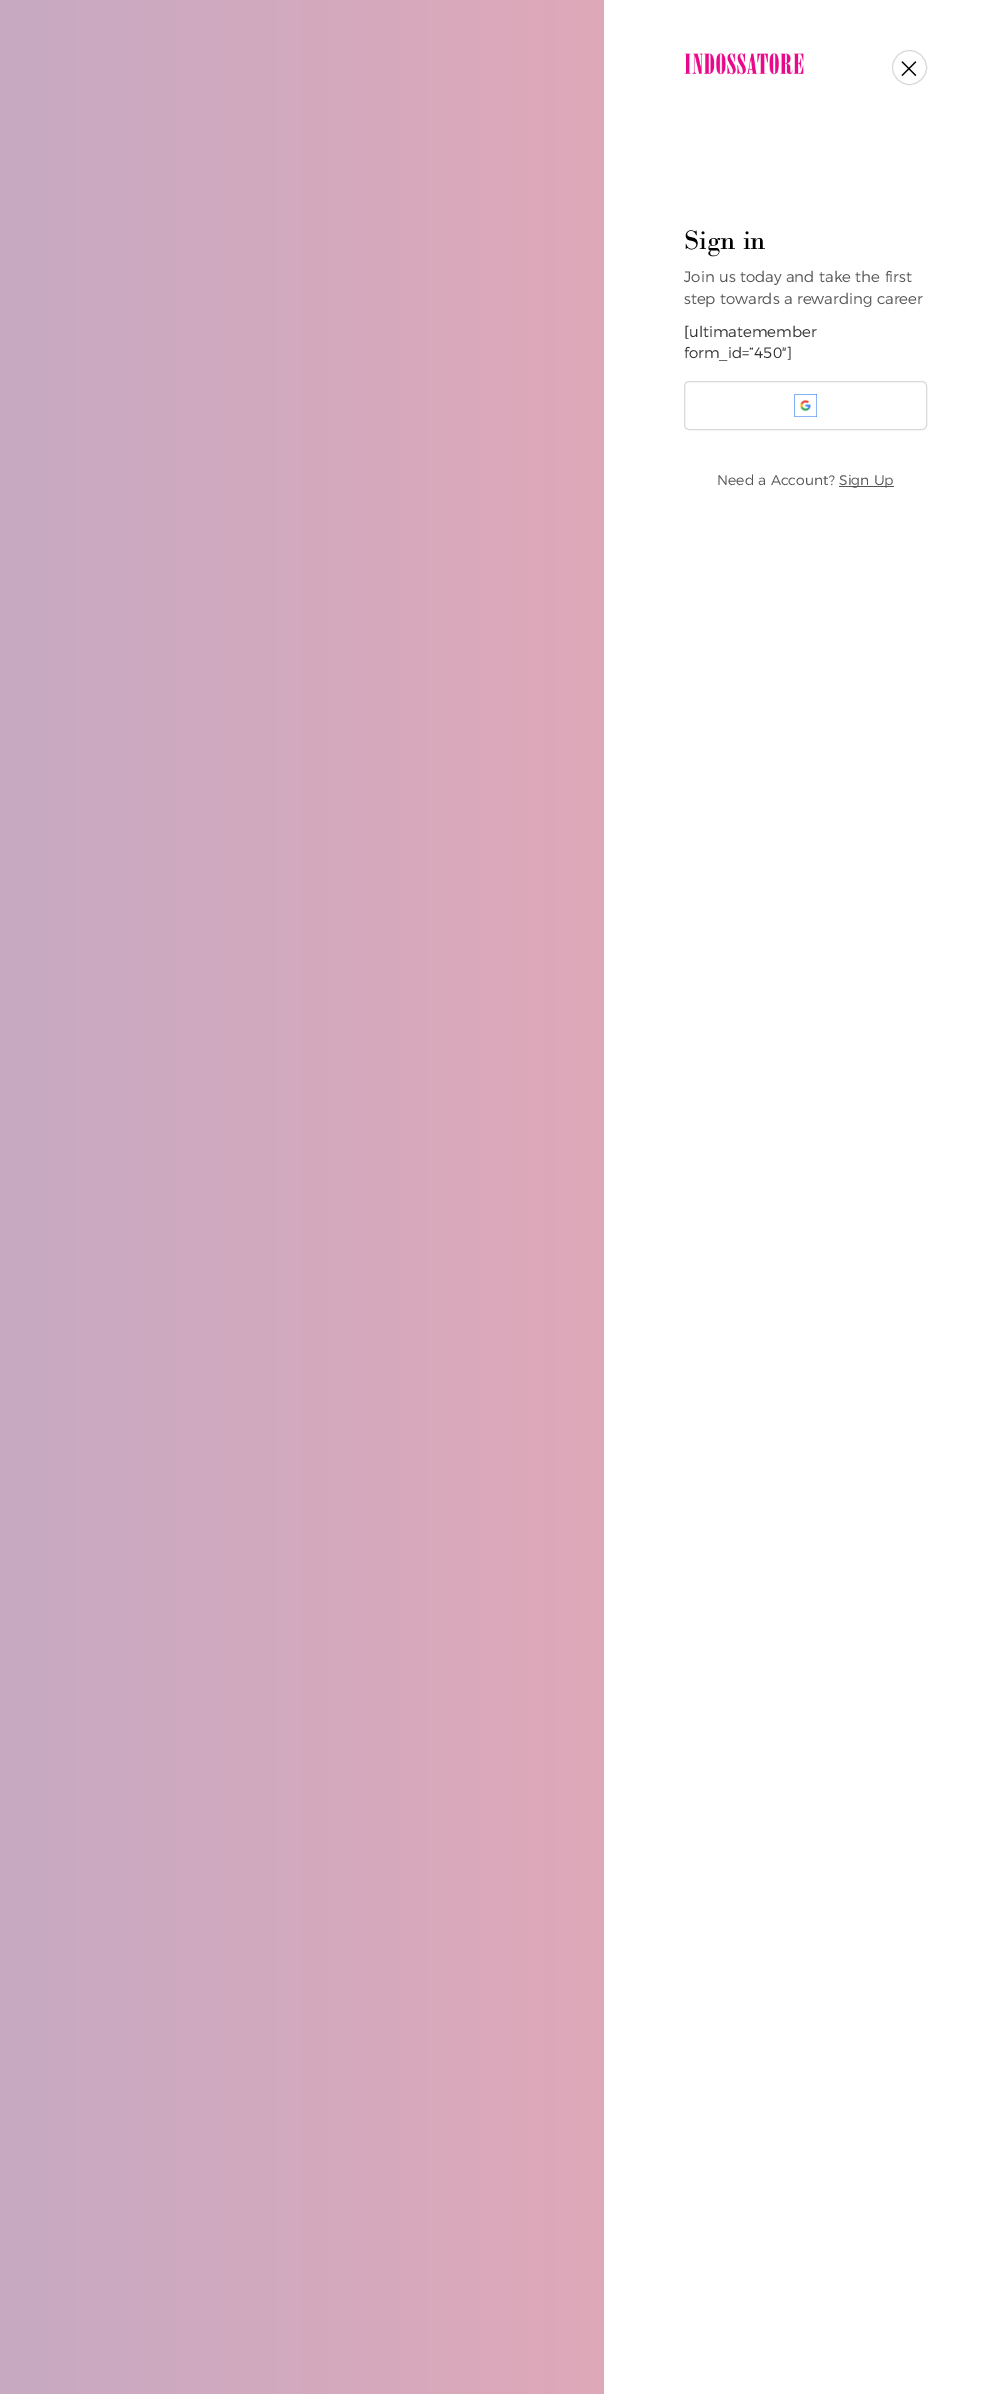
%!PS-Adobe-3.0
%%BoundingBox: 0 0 1007 2394
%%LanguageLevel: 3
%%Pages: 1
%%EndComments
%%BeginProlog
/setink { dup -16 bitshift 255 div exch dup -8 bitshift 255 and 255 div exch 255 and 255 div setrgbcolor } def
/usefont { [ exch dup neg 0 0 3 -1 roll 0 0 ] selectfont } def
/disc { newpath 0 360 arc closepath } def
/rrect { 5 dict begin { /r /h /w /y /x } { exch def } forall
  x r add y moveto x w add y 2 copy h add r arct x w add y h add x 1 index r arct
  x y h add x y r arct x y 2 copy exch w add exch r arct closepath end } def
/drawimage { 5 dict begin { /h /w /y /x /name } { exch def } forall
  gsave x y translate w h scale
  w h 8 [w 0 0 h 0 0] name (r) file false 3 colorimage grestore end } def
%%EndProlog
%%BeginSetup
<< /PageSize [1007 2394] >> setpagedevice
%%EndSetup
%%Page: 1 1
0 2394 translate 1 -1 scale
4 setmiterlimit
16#FFFFFF setink
0 0 1007 2394 rectfill
gsave 0 0 moveto 604 0 lineto 604 2394 lineto 0 2394 lineto closepath clip newpath
<< /ShadingType 2 /ColorSpace /DeviceRGB /Coords [0 1197 604 1197] /Extend [true true] /Function << /FunctionType 2 /Domain [0 1] /C0 [0.78 0.667 0.765] /C1 [0.875 0.659 0.725] /N 1 >> >> shfill grestore
(img1.raw) 684 53 120 22 drawimage
16#D9D9D9 setink
909.5 67.5 17 disc stroke
(img2.raw) 901 61 16 15 drawimage
/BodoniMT-Regular 28 usefont
16#000000 setink
684 249 moveto (Sign in) show
/Montserrat-Light 15 usefont
16#555555 setink
684 282 moveto (Join us today and take the first) show
684 304 moveto (step towards a rewarding career) show
16#333333 setink
684 337 moveto ([ultimatemember) show
684 358 moveto (form_id=”450″]) show
16#D9D9D9 setink
684.5 381.5 242 48 4.5 rrect stroke
(img3.raw) 794 394 23 23 drawimage
/Montserrat-Light 14 usefont
16#555555 setink
717 485 moveto (Need a Account?) show
839 486 55 1 rectfill
839 485 moveto (Sign Up) show
showpage
%%EOF
